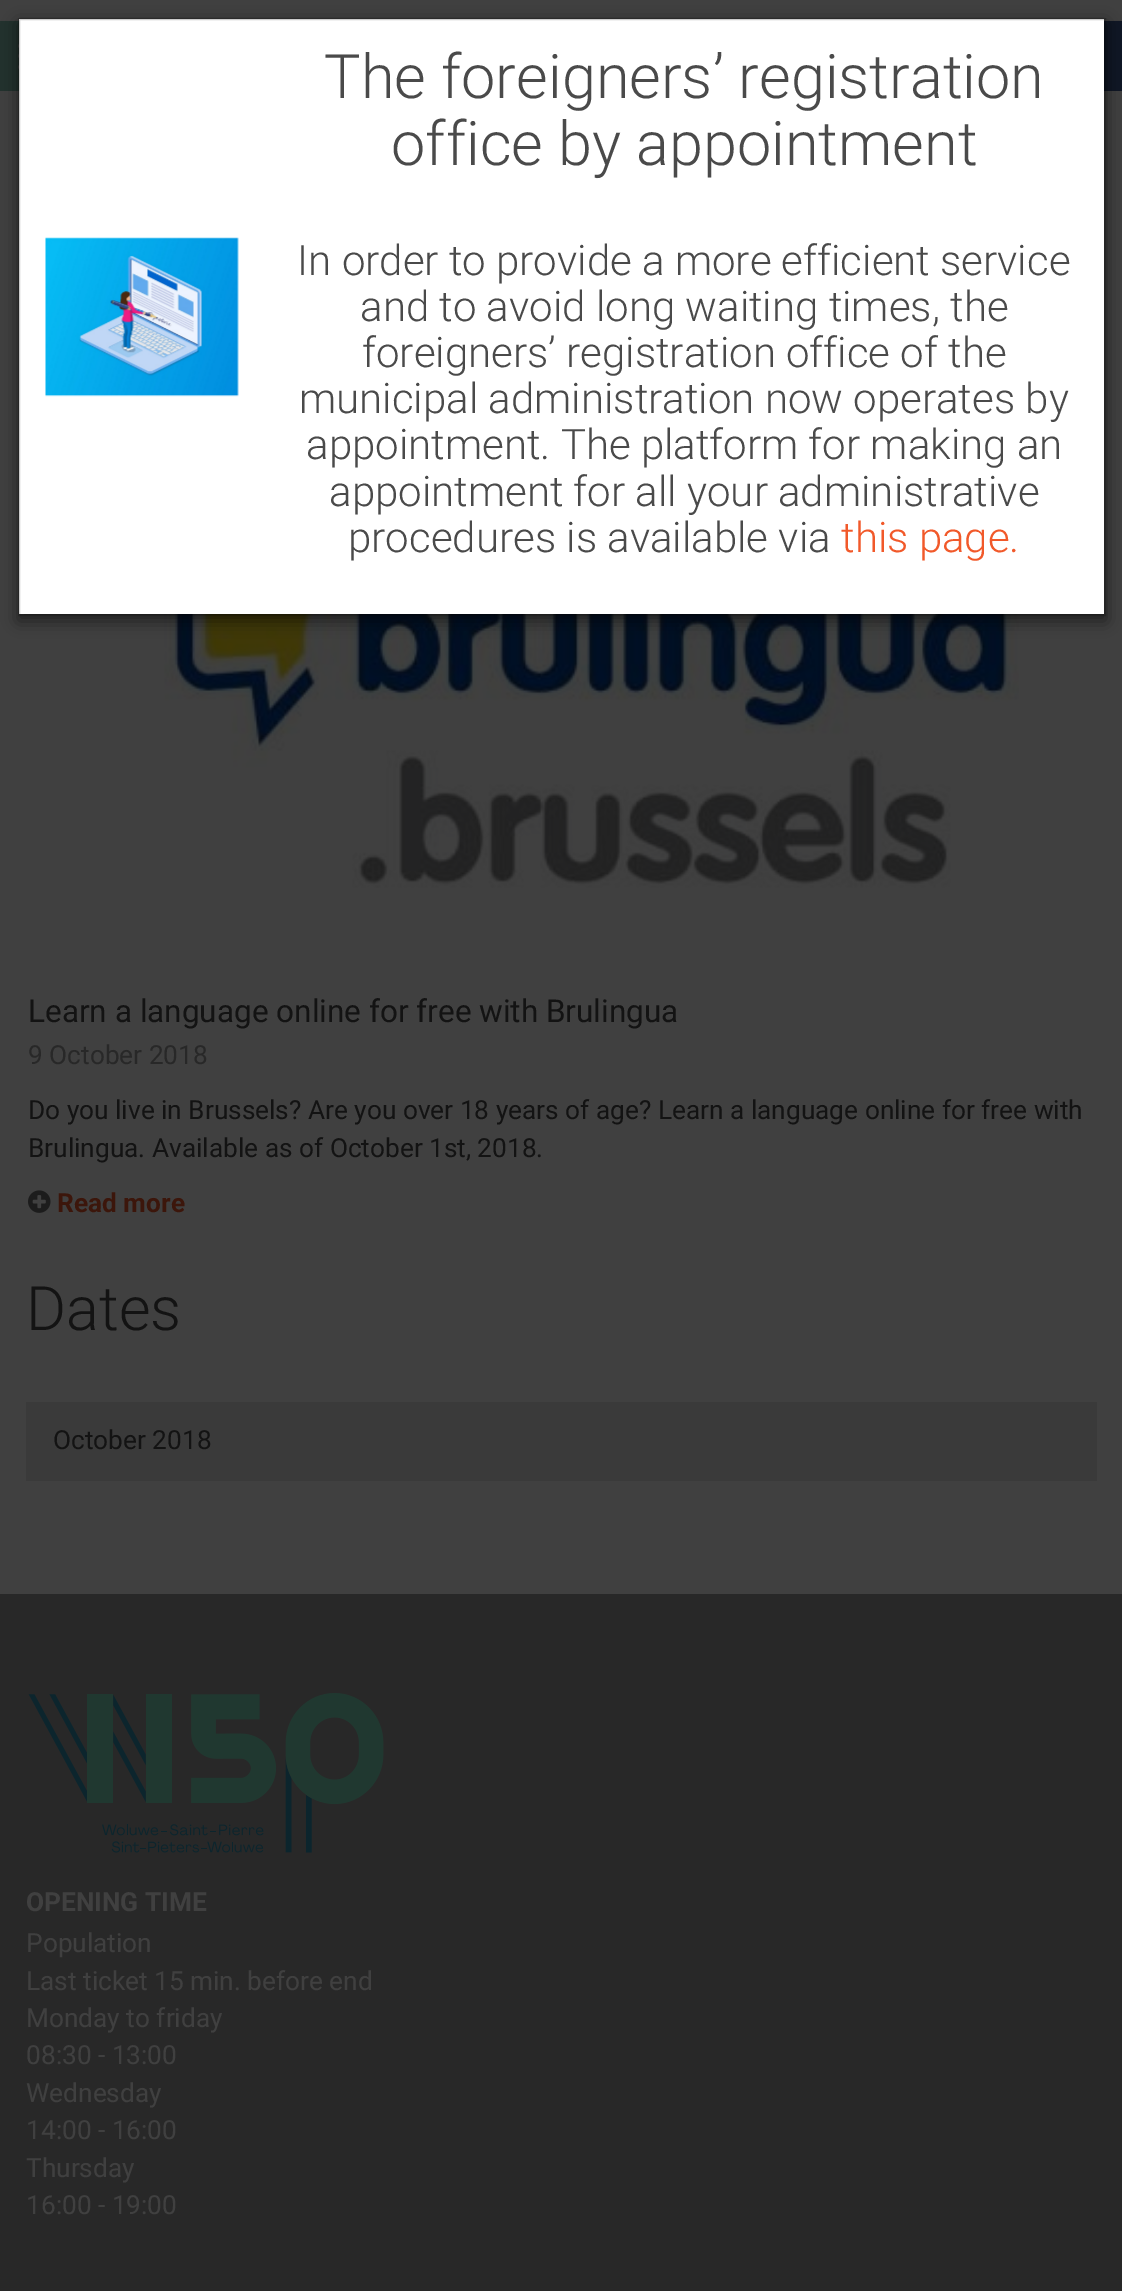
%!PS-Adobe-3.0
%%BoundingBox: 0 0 1122 2291
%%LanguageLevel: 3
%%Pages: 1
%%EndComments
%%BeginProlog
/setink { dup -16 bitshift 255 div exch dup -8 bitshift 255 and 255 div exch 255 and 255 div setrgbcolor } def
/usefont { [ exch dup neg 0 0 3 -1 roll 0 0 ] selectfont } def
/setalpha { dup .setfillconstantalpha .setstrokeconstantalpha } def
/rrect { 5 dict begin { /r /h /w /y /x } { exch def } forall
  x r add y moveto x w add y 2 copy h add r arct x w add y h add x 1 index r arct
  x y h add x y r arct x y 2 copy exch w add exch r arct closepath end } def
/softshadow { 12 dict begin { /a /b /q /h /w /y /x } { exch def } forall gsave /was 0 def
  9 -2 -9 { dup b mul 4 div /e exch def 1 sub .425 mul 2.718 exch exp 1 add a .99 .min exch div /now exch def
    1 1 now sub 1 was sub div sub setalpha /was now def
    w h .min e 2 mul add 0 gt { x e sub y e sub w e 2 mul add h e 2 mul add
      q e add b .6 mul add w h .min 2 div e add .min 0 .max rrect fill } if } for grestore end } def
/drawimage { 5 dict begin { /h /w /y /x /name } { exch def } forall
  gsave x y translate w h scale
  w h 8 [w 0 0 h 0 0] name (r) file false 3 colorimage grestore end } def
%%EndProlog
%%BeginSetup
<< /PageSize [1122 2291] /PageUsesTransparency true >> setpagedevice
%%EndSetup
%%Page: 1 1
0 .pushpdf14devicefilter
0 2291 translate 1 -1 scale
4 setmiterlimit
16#404040 setink
0 0 1122 2291 rectfill
16#23322E setink
0 21 19 70 rectfill
16#404040 setink
18 44 38 4 2 rrect fill
18 54 38 4 2 rrect fill
18 65 38 4 2 rrect fill
16#0F1626 setink
1104 21 18 70 rectfill
(img2.raw) 164 614 855 274 drawimage
16#000000 setink
18 23 1088 598 0 8 0.5 softshadow
16#FFFFFF setink
19 19 1085 595 rectfill
0.2 setalpha
16#000000 setink
2 setlinewidth
19 19 1086 596 rectstroke
1 setalpha
(img1.raw) 45 237 194 160 drawimage
/Roboto-Light 61.25 usefont
16#4A4A4A setink
324 98 moveto (The foreigners’ registration) show
391 165 moveto (office by appointment) show
/Roboto-Light 42 usefont
[
    [(In order to provide a more efficient service) 297 275]
    [(and to avoid long waiting times, the) 360 321]
    [(foreigners’ registration office of the) 362 367]
    [(municipal administration now operates by) 299 413]
    [(appointment. The platform for making an) 306 459]
    [(appointment for all your administrative) 329 506]
    [(procedures is available via) 348 552]
] { aload pop moveto show } forall
16#F1592A setink
841 552 moveto (this page.) show
/Roboto-Regular 31.5 usefont
16#131313 setink
28 1022 moveto (Learn a language online for free with Brulingua) show
/Roboto-Regular 26.25 usefont
16#282828 setink
28 1064 moveto (9 October 2018) show
16#131313 setink
28 1119 moveto (Do you live in Brussels? Are you over 18 years of age? Learn a language online for free with) show
28 1157 moveto (Brulingua. Available as of October 1st, 2018.) show
(img3.raw) 28 1190 23 23 drawimage
/Roboto-Bold 26.25 usefont
16#3C160B setink
57 1212 moveto (Read more) show
/Roboto-Light 61.25 usefont
16#131313 setink
26 1330 moveto (Dates) show
16#3A3A3A setink
26 1402 1071 79 rectfill
/Roboto-Regular 26.25 usefont
16#131313 setink
53 1449 moveto (October 2018) show
16#282828 setink
0 1594 1122 697 rectfill
(img4.raw) 28 1693 356 160 drawimage
/Roboto-Bold 26.25 usefont
16#404040 setink
26 1911 moveto (OPENING TIME) show
/Roboto-Regular 26.25 usefont
[
    [(Population) 26 1952]
    [(Last ticket 15 min. before end) 26 1990]
    [(Monday to friday) 26 2027]
    [(08:30 - 13:00) 26 2064]
    [(Wednesday) 26 2102]
    [(14:00 - 16:00) 26 2139]
    [(Thursday) 26 2177]
    [(16:00 - 19:00) 26 2214]
] { aload pop moveto show } forall
.poppdf14devicefilter showpage
%%EOF
